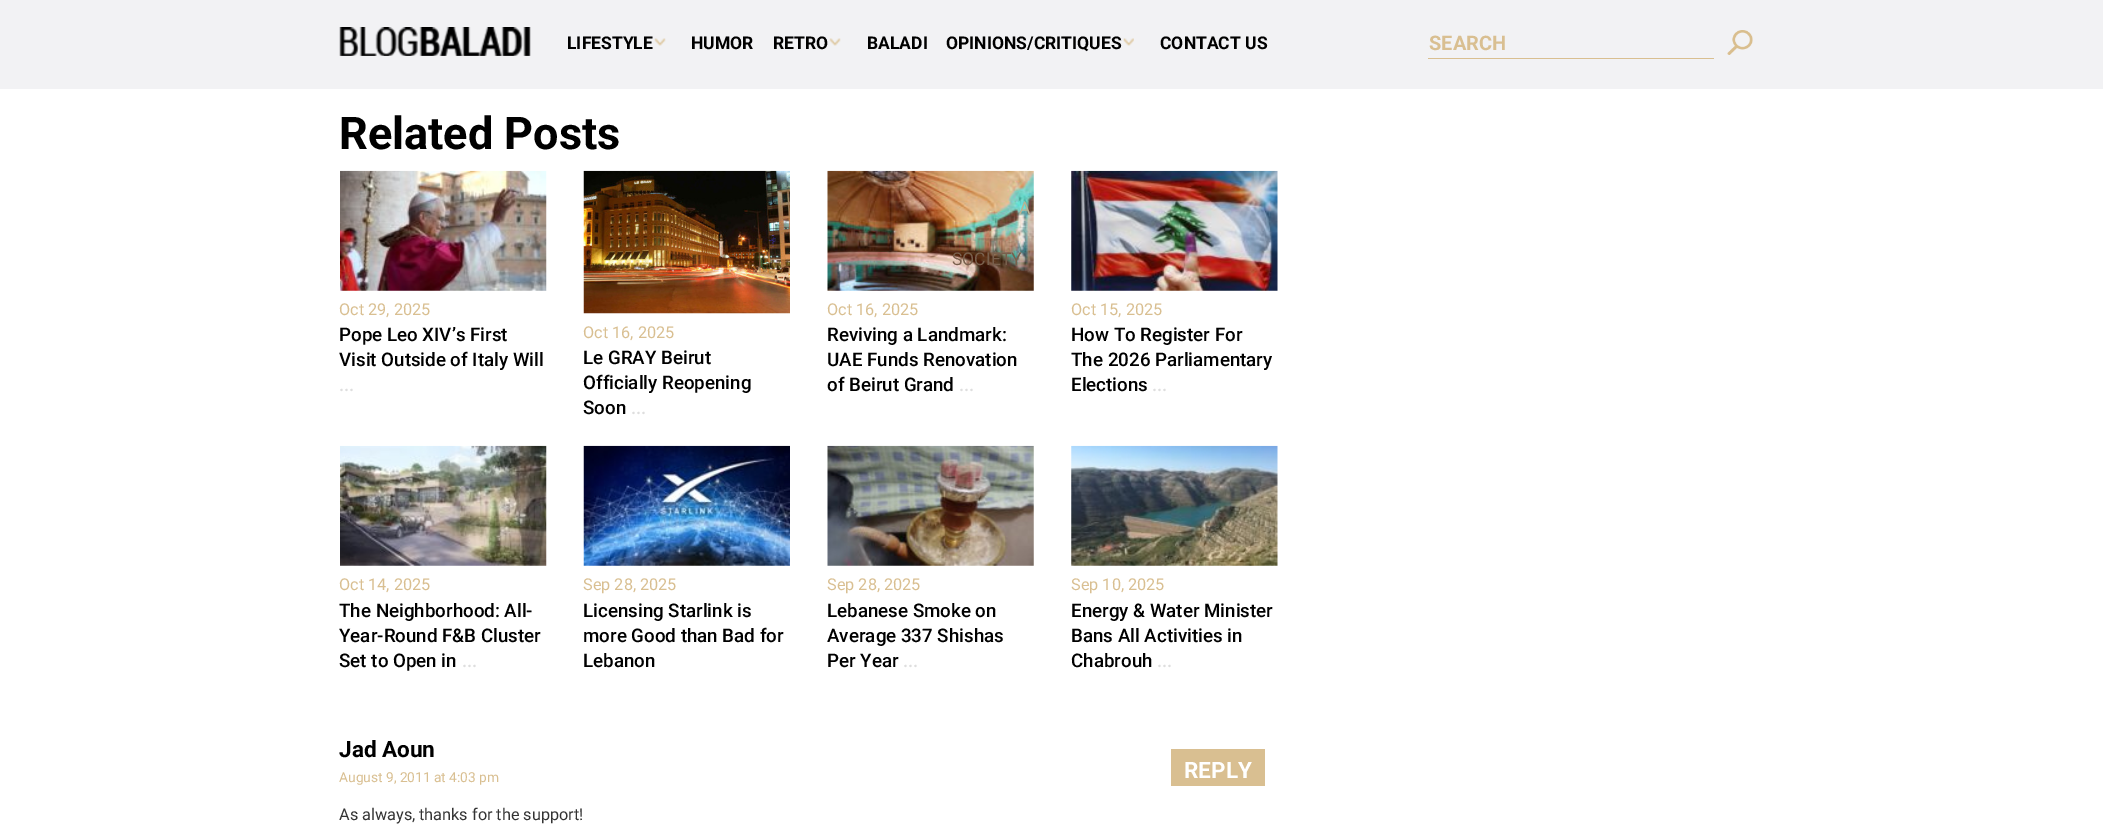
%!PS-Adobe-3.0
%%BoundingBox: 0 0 2103 832
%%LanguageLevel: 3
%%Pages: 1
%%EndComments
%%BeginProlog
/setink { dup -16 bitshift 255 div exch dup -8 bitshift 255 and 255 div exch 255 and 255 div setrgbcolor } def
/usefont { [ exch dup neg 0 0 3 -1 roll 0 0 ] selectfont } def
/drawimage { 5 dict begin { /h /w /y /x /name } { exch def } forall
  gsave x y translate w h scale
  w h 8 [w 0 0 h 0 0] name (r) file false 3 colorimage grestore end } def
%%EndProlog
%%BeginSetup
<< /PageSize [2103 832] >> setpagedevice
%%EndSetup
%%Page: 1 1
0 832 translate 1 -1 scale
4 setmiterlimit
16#FFFFFF setink
0 0 2103 832 rectfill
16#F2F2F4 setink
0 0 2103 89 rectfill
(img1.raw) 339 27 192 29 drawimage
/Roboto-Bold 17.5 usefont
16#000000 setink
567 49 moveto (LIFESTYLE) show
(img2.raw) 654 38 12 8 drawimage
691 49 moveto (HUMOR) show
773 49 moveto (RETRO) show
(img2.raw) 829 38 12 8 drawimage
867 49 moveto (BALADI) show
946 49 moveto (OPINIONS/CRITIQUES) show
(img3.raw) 1123 38 11 8 drawimage
(img7.raw) 827 170 207 121 drawimage
/Roboto-Regular 17.5 usefont
16#BAB392 setink
1019 214 moveto (A) show
16#785F4C setink
952 265 moveto (SOCIETY) show
/Roboto-Bold 17.5 usefont
16#000000 setink
1160 49 moveto (CONTACT US) show
16#D9BF91 setink
1428 58 286 1 rectfill
/Roboto-Bold 20 usefont
1429 50 moveto (SEARCH) show
(img4.raw) 1727 30 26 25 drawimage
/Roboto-Bold 45 usefont
16#000000 setink
339 149 moveto (Related Posts) show
(img5.raw) 340 170 207 121 drawimage
/Roboto-Regular 16.25 usefont
16#D9BF91 setink
339 315 moveto (Oct 29, 2025) show
/Roboto-Medium 18.75 usefont
16#000000 setink
339 341 moveto (Pope Leo XIV’s First) show
339 366 moveto (Visit Outside of Italy Will) show
16#DEDEDE setink
339 391 moveto (...) show
(img6.raw) 583 170 207 144 drawimage
/Roboto-Regular 16.25 usefont
16#D9BF91 setink
583 338 moveto (Oct 16, 2025) show
/Roboto-Medium 18.75 usefont
16#000000 setink
[
    [(Le GRAY Beirut) 583 364]
    [(Officially Reopening) 583 389]
    [(Soon) 583 414]
] { aload pop moveto show } forall
16#DEDEDE setink
631 414 moveto (...) show
/Roboto-Regular 16.25 usefont
16#D9BF91 setink
827 315 moveto (Oct 16, 2025) show
/Roboto-Medium 18.75 usefont
16#000000 setink
[
    [(Reviving a Landmark:) 827 341]
    [(UAE Funds Renovation) 827 366]
    [(of Beirut Grand) 827 391]
] { aload pop moveto show } forall
16#DEDEDE setink
959 391 moveto (...) show
(img8.raw) 1071 170 207 121 drawimage
/Roboto-Regular 16.25 usefont
16#D9BF91 setink
1071 315 moveto (Oct 15, 2025) show
/Roboto-Medium 18.75 usefont
16#000000 setink
[
    [(How To Register For) 1071 341]
    [(The 2026 Parliamentary) 1071 366]
    [(Elections) 1071 391]
] { aload pop moveto show } forall
16#DEDEDE setink
1152 391 moveto (...) show
(img9.raw) 340 445 207 121 drawimage
/Roboto-Regular 16.25 usefont
16#D9BF91 setink
339 590 moveto (Oct 14, 2025) show
/Roboto-Medium 18.75 usefont
16#000000 setink
[
    [(The Neighborhood: All-) 339 617]
    [(Year-Round F&B Cluster) 339 642]
    [(Set to Open in) 339 667]
] { aload pop moveto show } forall
16#DEDEDE setink
462 667 moveto (...) show
(img10.raw) 583 445 207 121 drawimage
/Roboto-Regular 16.25 usefont
16#D9BF91 setink
583 590 moveto (Sep 28, 2025) show
/Roboto-Medium 18.75 usefont
16#000000 setink
[
    [(Licensing Starlink is) 583 617]
    [(more Good than Bad for) 583 642]
    [(Lebanon) 583 667]
] { aload pop moveto show } forall
(img11.raw) 827 445 207 121 drawimage
/Roboto-Regular 16.25 usefont
16#D9BF91 setink
827 590 moveto (Sep 28, 2025) show
/Roboto-Medium 18.75 usefont
16#000000 setink
[
    [(Lebanese Smoke on) 827 617]
    [(Average 337 Shishas) 827 642]
    [(Per Year) 827 667]
] { aload pop moveto show } forall
16#DEDEDE setink
903 667 moveto (...) show
(img12.raw) 1071 445 207 121 drawimage
/Roboto-Regular 16.25 usefont
16#D9BF91 setink
1071 590 moveto (Sep 10, 2025) show
/Roboto-Medium 18.75 usefont
16#000000 setink
[
    [(Energy & Water Minister) 1071 617]
    [(Bans All Activities in) 1071 642]
    [(Chabrouh) 1071 667]
] { aload pop moveto show } forall
16#DEDEDE setink
1157 667 moveto (...) show
/Roboto-Bold 22.5 usefont
16#000000 setink
339 757 moveto (Jad Aoun) show
/Roboto-Regular 13.75 usefont
16#D9BF91 setink
339 782 moveto (August 9, 2011 at 4:03 pm) show
1171 749 94 37 rectfill
/Roboto-Bold 22.5 usefont
16#FFFFFF setink
1184 778 moveto (REPLY) show
/Roboto-Regular 16.25 usefont
16#333333 setink
339 820 moveto (As always, thanks for the support!) show
showpage
%%EOF
